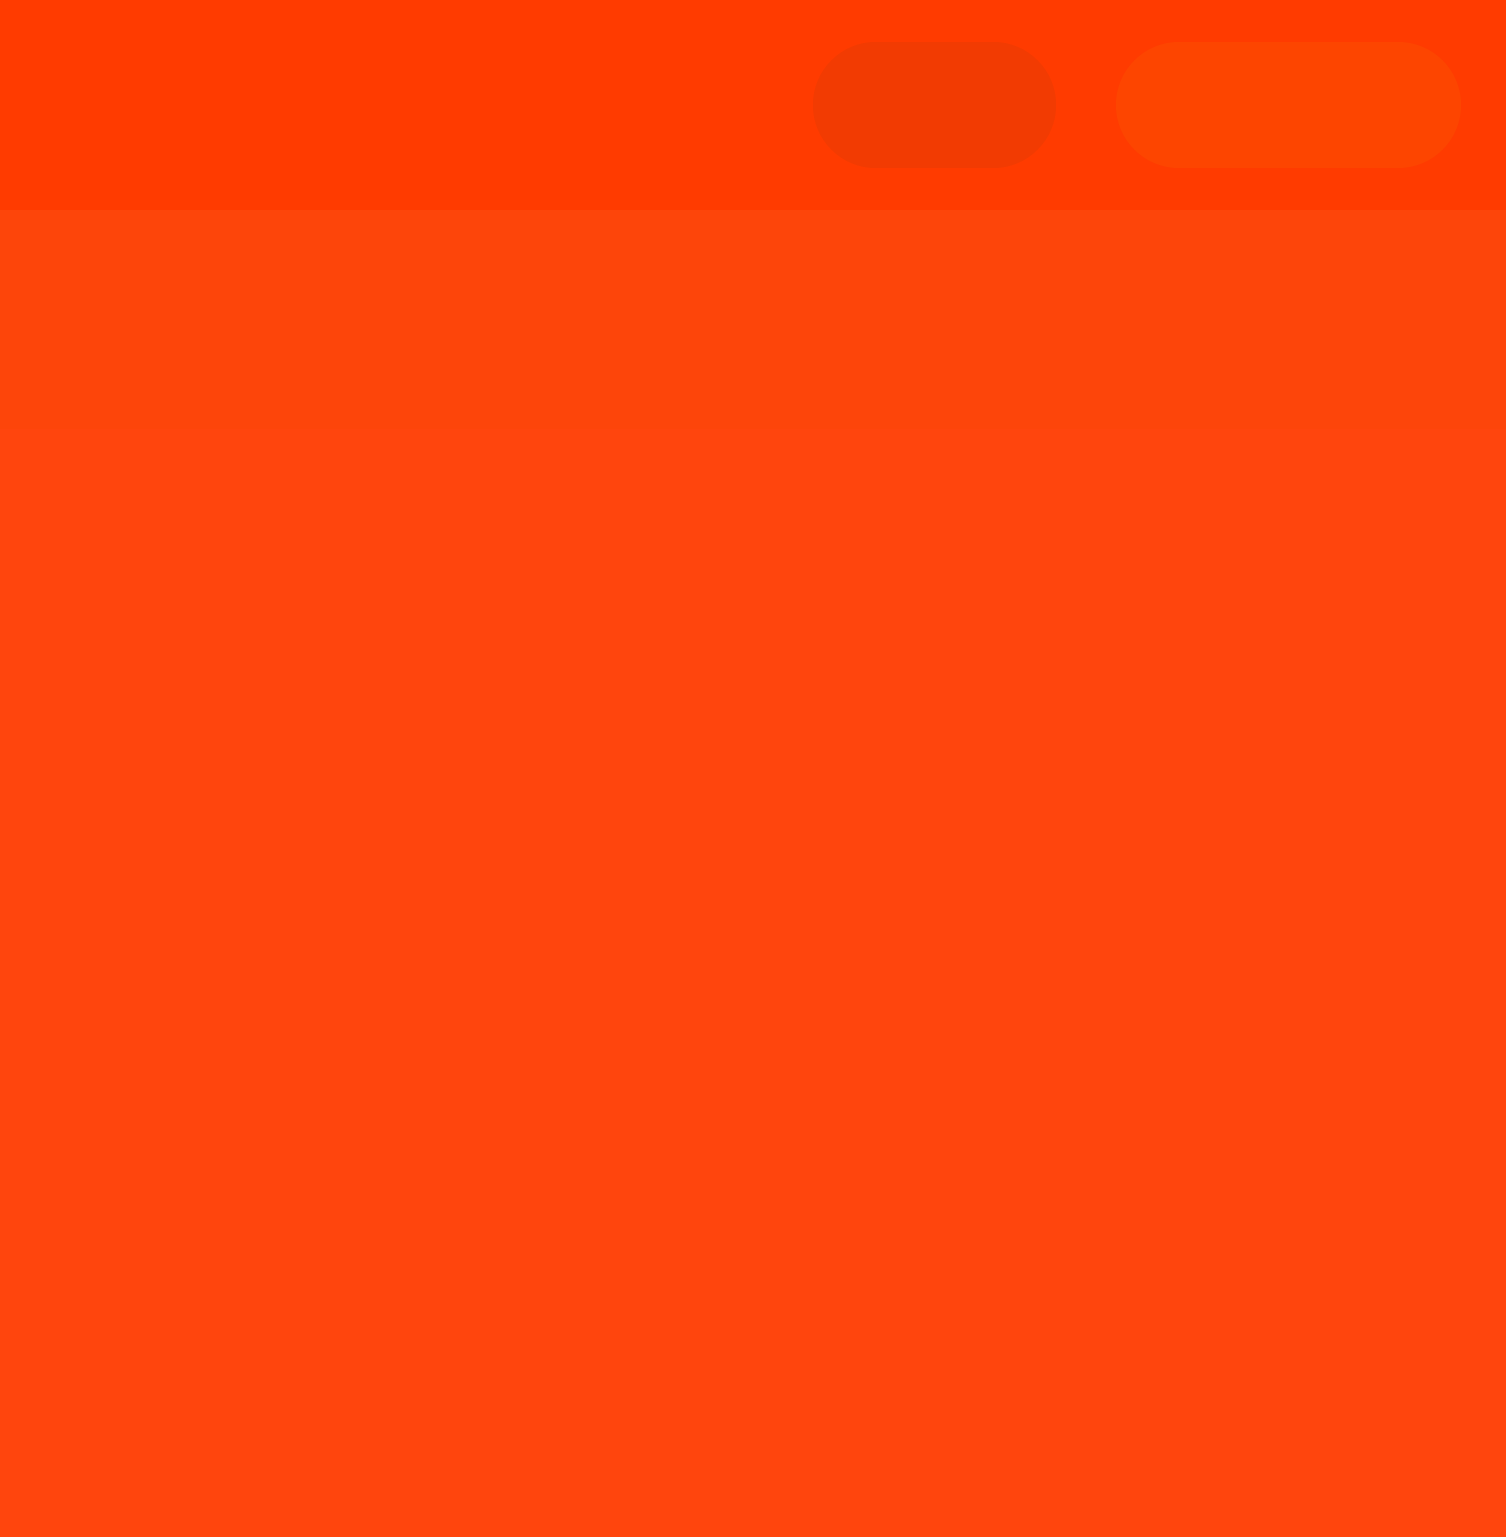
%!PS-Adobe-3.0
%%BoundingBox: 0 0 1506 1537
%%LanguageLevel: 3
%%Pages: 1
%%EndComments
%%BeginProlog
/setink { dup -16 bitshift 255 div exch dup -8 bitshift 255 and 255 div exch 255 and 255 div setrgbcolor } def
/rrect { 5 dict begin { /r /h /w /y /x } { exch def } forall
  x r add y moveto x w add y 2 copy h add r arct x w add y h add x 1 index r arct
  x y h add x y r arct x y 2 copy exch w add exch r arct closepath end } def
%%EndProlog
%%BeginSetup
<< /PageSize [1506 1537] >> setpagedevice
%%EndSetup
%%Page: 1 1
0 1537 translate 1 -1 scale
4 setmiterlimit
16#FF450D setink
0 0 1506 1537 rectfill
16#FF3B00 setink
0 0 1506 210 rectfill
16#F23B02 setink
813 42 243 126 63 rrect fill
16#FD4500 setink
1116 42 345 126 63 rrect fill
16#FD450A setink
0 210 1506 219 rectfill
showpage
%%EOF
